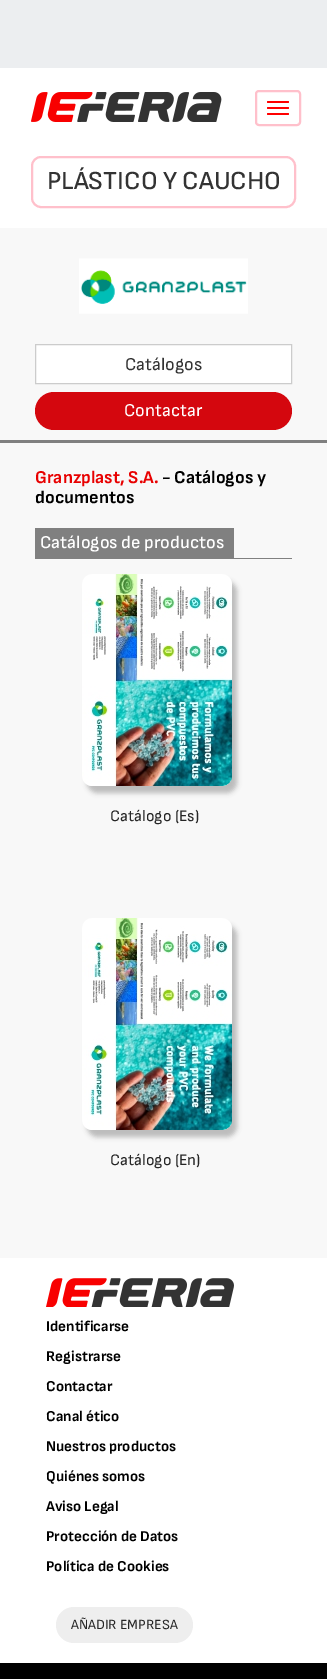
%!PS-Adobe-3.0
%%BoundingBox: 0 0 327 1679
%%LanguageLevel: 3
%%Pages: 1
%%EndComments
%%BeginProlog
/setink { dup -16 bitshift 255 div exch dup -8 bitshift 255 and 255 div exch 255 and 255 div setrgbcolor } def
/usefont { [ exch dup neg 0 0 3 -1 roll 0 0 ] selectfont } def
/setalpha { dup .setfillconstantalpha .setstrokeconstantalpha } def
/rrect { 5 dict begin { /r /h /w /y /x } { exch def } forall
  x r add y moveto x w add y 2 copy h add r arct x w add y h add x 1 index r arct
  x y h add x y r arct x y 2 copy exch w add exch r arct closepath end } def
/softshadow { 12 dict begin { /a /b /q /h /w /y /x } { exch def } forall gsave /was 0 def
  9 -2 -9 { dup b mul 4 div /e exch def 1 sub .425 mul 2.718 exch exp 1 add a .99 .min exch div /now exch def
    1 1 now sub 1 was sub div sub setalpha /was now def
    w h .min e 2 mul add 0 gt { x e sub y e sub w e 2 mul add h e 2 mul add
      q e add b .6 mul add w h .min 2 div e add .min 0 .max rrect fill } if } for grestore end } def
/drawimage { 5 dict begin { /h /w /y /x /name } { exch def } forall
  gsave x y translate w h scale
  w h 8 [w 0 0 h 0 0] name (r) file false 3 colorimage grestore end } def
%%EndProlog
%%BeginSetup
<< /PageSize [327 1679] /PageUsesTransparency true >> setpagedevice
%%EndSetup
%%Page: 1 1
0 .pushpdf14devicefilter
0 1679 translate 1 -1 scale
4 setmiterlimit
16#FFFFFF setink
0 0 327 1679 rectfill
16#ECEEF0 setink
0 0 327 68 rectfill
(img1.raw) 31 92 191 30 drawimage
16#FFC0CB setink
2 setlinewidth
256 91 44 34 3 rrect stroke
16#FF0000 setink
267 101 22 2 1 rrect fill
267 107 22 2 1 rrect fill
267 113 22 2 1 rrect fill
16#FFC0CB setink
32 157 263 50 9 rrect stroke
/SofiaSans-Medium 26 usefont
16#333333 setink
47 189 moveto (PLÁSTICO Y CAUCHO) show
16#F8F8F8 setink
0 228 327 1030 rectfill
16#808080 setink
0 440 327 3 rectfill
(img2.raw) 79 258 169 56 drawimage
16#FFFFFF setink
35.5 344.5 moveto 291.5 344.5 lineto 291.5 383.5 lineto 35.5 383.5 lineto closepath gsave fill grestore
16#CCCCCC setink
1 setlinewidth
stroke
/SofiaSans-Regular 18 usefont
16#333333 setink
125 370 moveto (Catálogos) show
16#D4070E setink
35 392 257 38 19 rrect fill
16#FFFFFF setink
124 416 moveto (Contactar) show
/SofiaSans-Bold 18 usefont
16#E80000 setink
35 483 moveto (Granzplast, S.A.) show
16#000000 setink
162 483 moveto (- Catálogos y) show
35 503 moveto (documentos) show
16#808080 setink
35 528 199 30 rectfill
/SofiaSans-Medium 18 usefont
16#FFFFFF setink
40 548 moveto (Catálogos de productos) show
16#808080 setink
35 558 257 1 rectfill
16#BBBBBB setink
87 581 150 212 10 2.5 1 softshadow
(img3.raw) 82 574 150 212 drawimage
(img4.raw) 88 776 144 10 drawimage
/SofiaSans-Regular 16 usefont
16#262626 setink
110 821 moveto (Catálogo \(Es\)) show
16#BBBBBB setink
87 925 150 212 10 2.5 1 softshadow
(img5.raw) 82 918 150 212 drawimage
(img6.raw) 88 1120 144 10 drawimage
16#262626 setink
110 1165 moveto (Catálogo \(En\)) show
(img7.raw) 46 1278 188 29 drawimage
/SofiaSans-Bold 15 usefont
16#000000 setink
[
    [(Identificarse) 46 1331]
    [(Registrarse) 46 1361]
    [(Contactar) 46 1391]
    [(Canal ético) 46 1421]
    [(Nuestros productos) 46 1451]
    [(Quiénes somos) 46 1481]
    [(Aviso Legal) 46 1511]
    [(Protección de Datos) 46 1541]
    [(Política de Cookies) 46 1571]
] { aload pop moveto show } forall
16#EEEEEE setink
56 1607 137 36 18 rrect fill
/SofiaSans-Regular 14 usefont
16#262626 setink
71 1629 moveto (AÑADIR EMPRESA) show
16#000000 setink
0 1663 327 16 rectfill
.poppdf14devicefilter showpage
%%EOF
